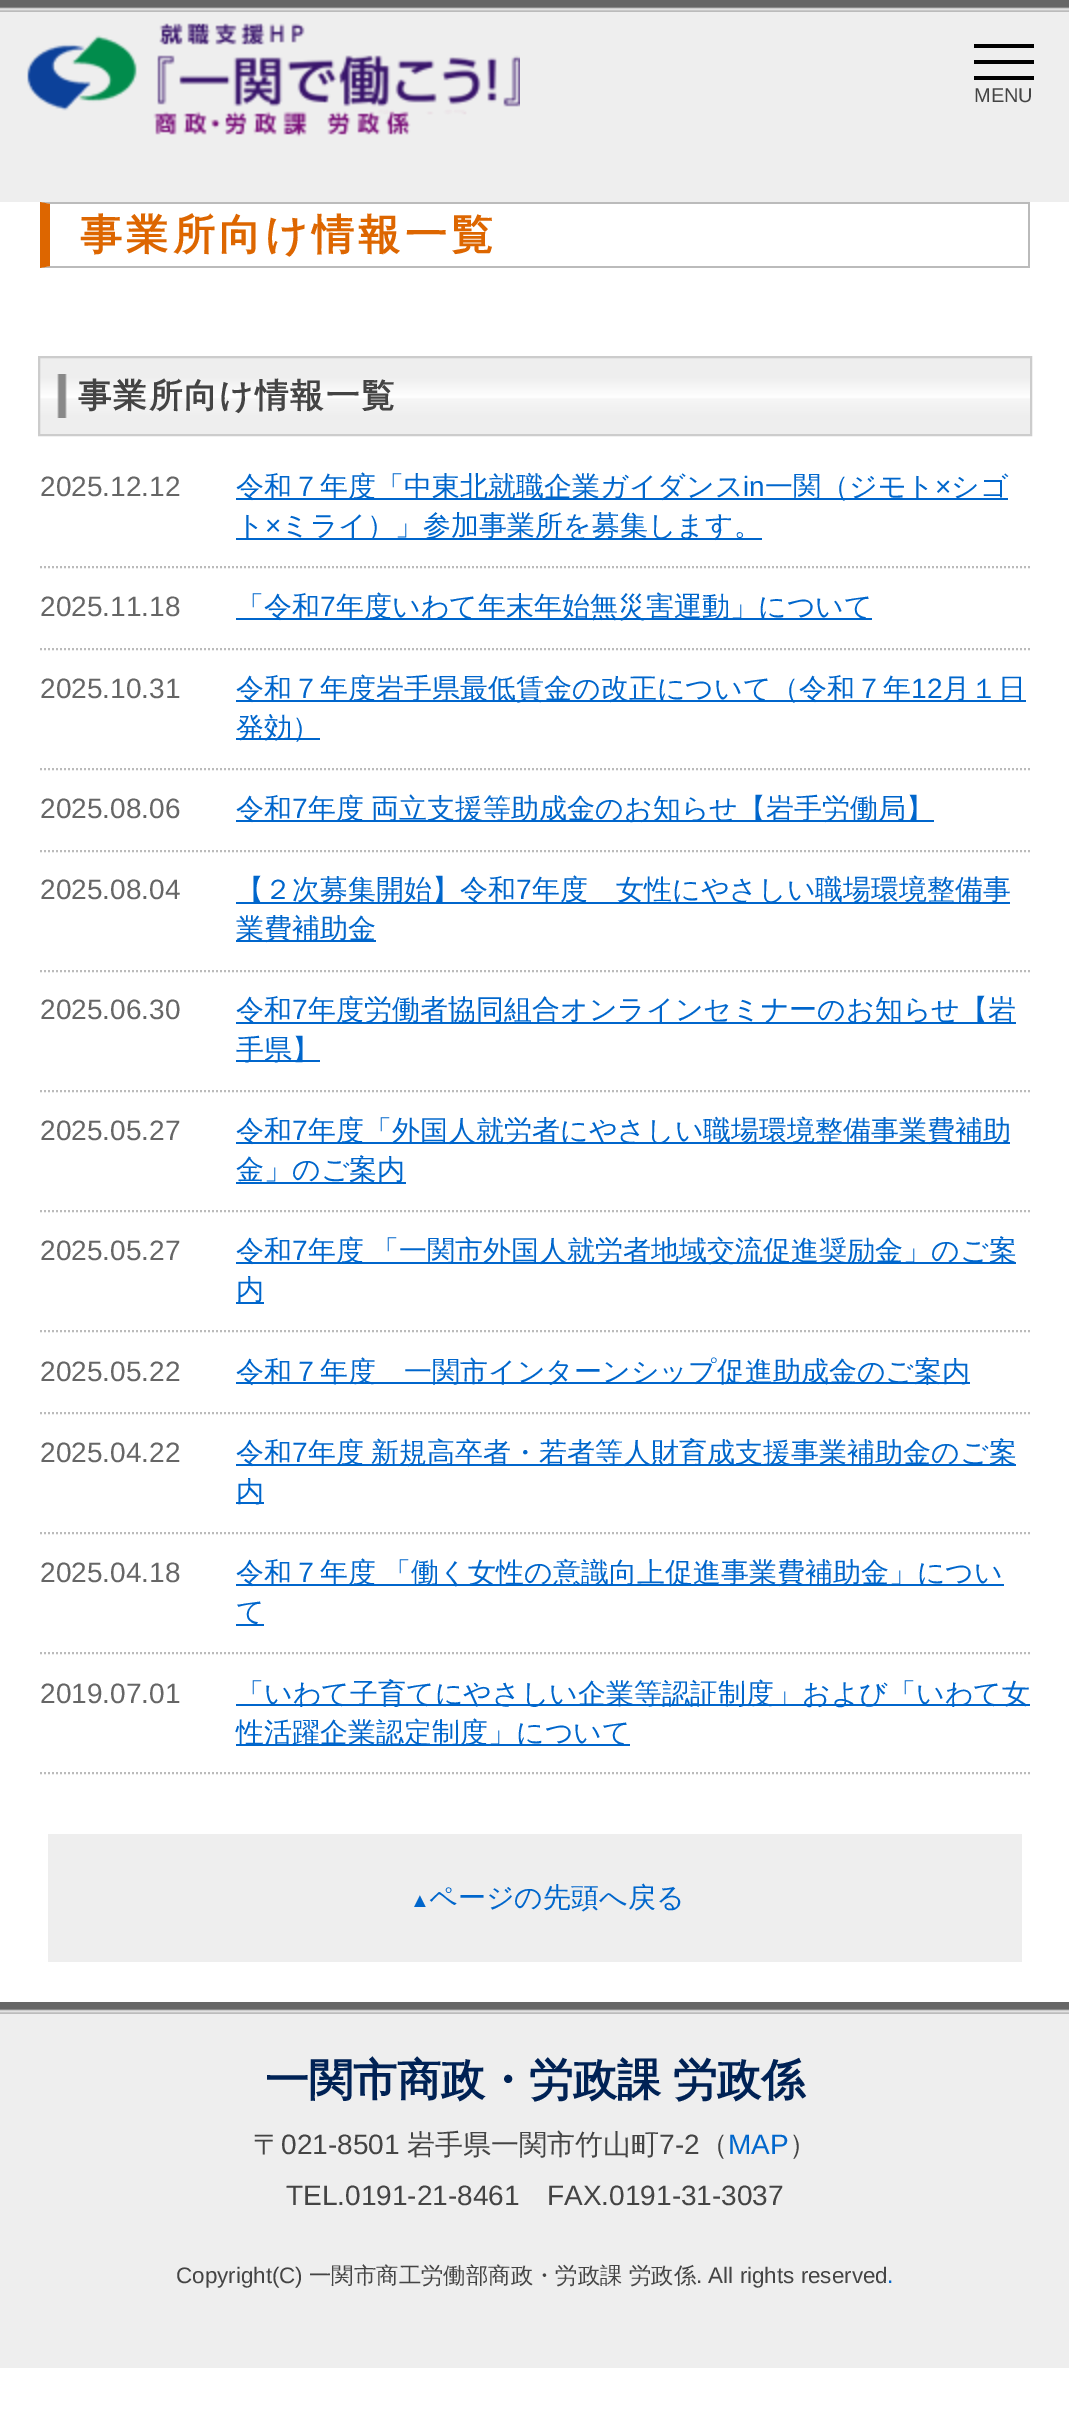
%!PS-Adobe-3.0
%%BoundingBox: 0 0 1069 2414
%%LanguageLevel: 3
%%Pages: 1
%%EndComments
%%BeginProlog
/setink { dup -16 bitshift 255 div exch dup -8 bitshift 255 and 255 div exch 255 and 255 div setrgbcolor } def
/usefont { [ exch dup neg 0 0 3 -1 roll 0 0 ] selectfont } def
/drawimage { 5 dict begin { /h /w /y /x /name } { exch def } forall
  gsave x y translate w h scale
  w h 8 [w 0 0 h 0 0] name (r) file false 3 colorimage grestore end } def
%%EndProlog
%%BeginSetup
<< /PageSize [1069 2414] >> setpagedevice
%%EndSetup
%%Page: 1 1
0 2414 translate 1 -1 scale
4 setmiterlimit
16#FFFFFF setink
0 0 1069 2414 rectfill
16#EEEEEE setink
0 12 1069 190 rectfill
(img1.raw) 0 0 1069 12 drawimage
(img2.raw) 27 23 493 114 drawimage
[
    [974 44 60 4 16#000000]
    [974 60 60 4 16#000000]
    [974 76 60 4 16#000000]
] { aload pop setink rectfill } forall
/LiberationSans-Regular 20 usefont
16#444444 setink
974 102 moveto (MENU) show
16#BBBBBB setink
40 202 moveto 1030 202 lineto 1028 204 lineto 50 204 lineto closepath fill
1028 202 2 66 rectfill
1030 268 moveto 40 268 lineto 50 266 lineto 1028 266 lineto closepath fill
16#DD6600 setink
40 268 moveto 40 202 lineto 50 204 lineto 50 266 lineto closepath fill
/WenQuanYiZenHei-Bold 42 usefont
80 249 moveto 4.25 0 (事業所向け情報一覧) ashow
(img3.raw) 40 374 990 44 drawimage
16#EEEEEE setink
40 358 990 16 rectfill
40 418 990 16 rectfill
16#CCCCCC setink
2 setlinewidth
39 357 992 78 rectstroke
/WenQuanYiZenHei-Bold 33.5 usefont
16#444444 setink
78 407 moveto 1.75 0 (事業所向け情報一覧) ashow
/LiberationSans-Regular 28 usefont
16#666666 setink
40 496 moveto (2025.12.12) show
16#BBBBBB setink
[2 2] 0 setdash
40 567 moveto 1030 567 lineto stroke
16#0066CC setink
236 498 772 2 rectfill
/WenQuanYiZenHei-Medium 28 usefont
236 496 moveto (令和７年度「中東北就職企業ガイダンス) show
/LiberationSans-Regular 28 usefont
743 496 moveto (in) show
/WenQuanYiZenHei-Medium 28 usefont
765 496 moveto (一関（ジモト) show
/LiberationSans-Regular 28 usefont
935 496 moveto (×) show
/WenQuanYiZenHei-Medium 28 usefont
951 496 moveto (シゴ) show
236 538 526 2 rectfill
236 535 moveto (ト) show
/LiberationSans-Regular 28 usefont
265 535 moveto (×) show
/WenQuanYiZenHei-Medium 28 usefont
281 535 moveto (ミライ）」参加事業所を募集します。) show
/LiberationSans-Regular 28 usefont
16#666666 setink
40 616 moveto (2025.11.18) show
16#BBBBBB setink
40 649 moveto 1030 649 lineto stroke
16#0066CC setink
236 618 636 2 rectfill
/WenQuanYiZenHei-Medium 28 usefont
236 616 moveto (「令和) show
/LiberationSans-Regular 28 usefont
320 616 moveto (7) show
/WenQuanYiZenHei-Medium 28 usefont
336 616 moveto (年度いわて年末年始無災害運動」について) show
/LiberationSans-Regular 28 usefont
16#666666 setink
40 698 moveto (2025.10.31) show
16#BBBBBB setink
40 769 moveto 1030 769 lineto stroke
16#0066CC setink
236 700 790 2 rectfill
/WenQuanYiZenHei-Medium 28 usefont
236 698 moveto (令和７年度岩手県最低賃金の改正について（令和７年) show
/LiberationSans-Regular 28 usefont
911 698 moveto (12) show
/WenQuanYiZenHei-Medium 28 usefont
942 698 moveto (月１日) show
236 738 84 2 rectfill
236 737 moveto (発効）) show
/LiberationSans-Regular 28 usefont
16#666666 setink
40 818 moveto (2025.08.06) show
16#BBBBBB setink
40 851 moveto 1030 851 lineto stroke
16#0066CC setink
236 820 698 2 rectfill
/WenQuanYiZenHei-Medium 28 usefont
236 818 moveto (令和) show
/LiberationSans-Regular 28 usefont
292 818 moveto (7) show
/WenQuanYiZenHei-Medium 28 usefont
308 818 moveto -1 0 32 (年度 両立支援等助成金のお知らせ【岩手労働局】) widthshow
/LiberationSans-Regular 28 usefont
16#666666 setink
40 899 moveto (2025.08.04) show
16#BBBBBB setink
40 971 moveto 1030 971 lineto stroke
16#0066CC setink
236 902 774 2 rectfill
/WenQuanYiZenHei-Medium 28 usefont
236 899 moveto (【２次募集開始】令和) show
/LiberationSans-Regular 28 usefont
516 899 moveto (7) show
/WenQuanYiZenHei-Medium 28 usefont
532 899 moveto (年度　女性にやさしい職場環境整備事) show
236 940 140 2 rectfill
236 938 moveto (業費補助金) show
/LiberationSans-Regular 28 usefont
16#666666 setink
40 1019 moveto (2025.06.30) show
16#BBBBBB setink
40 1091 moveto 1030 1091 lineto stroke
16#0066CC setink
236 1022 780 2 rectfill
/WenQuanYiZenHei-Medium 28 usefont
236 1019 moveto (令和) show
/LiberationSans-Regular 28 usefont
292 1019 moveto (7) show
/WenQuanYiZenHei-Medium 28 usefont
308 1019 moveto (年度労働者協同組合オンラインセミナーのお知らせ【岩) show
236 1060 84 2 rectfill
236 1059 moveto (手県】) show
/LiberationSans-Regular 28 usefont
16#666666 setink
40 1140 moveto (2025.05.27) show
16#BBBBBB setink
40 1211 moveto 1030 1211 lineto stroke
16#0066CC setink
236 1142 774 2 rectfill
/WenQuanYiZenHei-Medium 28 usefont
236 1140 moveto (令和) show
/LiberationSans-Regular 28 usefont
292 1140 moveto (7) show
/WenQuanYiZenHei-Medium 28 usefont
308 1140 moveto (年度「外国人就労者にやさしい職場環境整備事業費補助) show
236 1182 170 2 rectfill
236 1179 moveto (金」のご案内) show
/LiberationSans-Regular 28 usefont
16#666666 setink
40 1260 moveto (2025.05.27) show
16#BBBBBB setink
40 1331 moveto 1030 1331 lineto stroke
16#0066CC setink
236 1262 780 2 rectfill
/WenQuanYiZenHei-Medium 28 usefont
236 1260 moveto (令和) show
/LiberationSans-Regular 28 usefont
292 1260 moveto (7) show
/WenQuanYiZenHei-Medium 28 usefont
308 1260 moveto -1 0 32 (年度 「一関市外国人就労者地域交流促進奨励金」のご案) widthshow
236 1302 28 2 rectfill
236 1299 moveto (内) show
/LiberationSans-Regular 28 usefont
16#666666 setink
40 1381 moveto (2025.05.22) show
16#BBBBBB setink
40 1413 moveto 1030 1413 lineto stroke
16#0066CC setink
236 1382 734 2 rectfill
/WenQuanYiZenHei-Medium 28 usefont
236 1381 moveto (令和７年度　一関市インターンシップ促進助成金のご案内) show
/LiberationSans-Regular 28 usefont
16#666666 setink
40 1462 moveto (2025.04.22) show
16#BBBBBB setink
40 1533 moveto 1030 1533 lineto stroke
16#0066CC setink
236 1464 780 2 rectfill
/WenQuanYiZenHei-Medium 28 usefont
236 1462 moveto (令和) show
/LiberationSans-Regular 28 usefont
292 1462 moveto (7) show
/WenQuanYiZenHei-Medium 28 usefont
308 1462 moveto -1 0 32 (年度 新規高卒者・若者等人財育成支援事業補助金のご案) widthshow
236 1502 28 2 rectfill
236 1501 moveto (内) show
/LiberationSans-Regular 28 usefont
16#666666 setink
40 1582 moveto (2025.04.18) show
16#BBBBBB setink
40 1653 moveto 1030 1653 lineto stroke
16#0066CC setink
236 1584 768 2 rectfill
/WenQuanYiZenHei-Medium 28 usefont
236 1582 moveto -1 0 32 (令和７年度 「働く女性の意識向上促進事業費補助金」につい) widthshow
236 1624 28 2 rectfill
236 1621 moveto (て) show
/LiberationSans-Regular 28 usefont
16#666666 setink
40 1703 moveto (2019.07.01) show
16#BBBBBB setink
40 1773 moveto 1030 1773 lineto stroke
16#0066CC setink
236 1704 794 2 rectfill
/WenQuanYiZenHei-Medium 28 usefont
236 1703 moveto (「いわて子育てにやさしい企業等認証制度」および「いわて女) show
236 1744 394 2 rectfill
236 1742 moveto (性活躍企業認定制度」について) show
16#EEEEEE setink
48 1834 974 128 rectfill
/LiberationSans-Regular 20 usefont
16#0066CC setink
410 1907 moveto (▲) show
/WenQuanYiZenHei-Medium 28 usefont
429 1907 moveto (ページの先頭へ戻る) show
16#EEEEEE setink
0 2014 1069 354 rectfill
(img1.raw) 0 2002 1069 12 drawimage
/WenQuanYiZenHei-Bold 44 usefont
16#002255 setink
265 2095 moveto -1 0 32 (一関市商政・労政課 労政係) widthshow
/WenQuanYiZenHei-Medium 28 usefont
16#444444 setink
253 2154 moveto (〒) show
/LiberationSans-Regular 28 usefont
281 2154 moveto (021-8501) show
/WenQuanYiZenHei-Medium 28 usefont
407 2154 moveto (岩手県一関市竹山町) show
/LiberationSans-Regular 28 usefont
659 2154 moveto (7-2) show
/WenQuanYiZenHei-Medium 28 usefont
700 2154 moveto (（) show
/LiberationSans-Regular 28 usefont
16#0066CC setink
728 2154 moveto (MAP) show
/WenQuanYiZenHei-Medium 28 usefont
16#444444 setink
789 2154 moveto (）) show
/LiberationSans-Regular 28 usefont
286 2205 moveto (TEL.0191-21-8461) show
547 2205 moveto (FAX.0191-31-3037) show
/LiberationSans-Regular 22.4 usefont
176 2283 moveto (Copyright\(C\)) show
/WenQuanYiZenHei-Medium 22.4 usefont
309 2283 moveto (一関市商工労働部商政・労政課) show
629 2283 moveto (労政係) show
/LiberationSans-Regular 22.4 usefont
696 2283 moveto (. All rights reserved) show
16#0066CC setink
887 2283 moveto (.) show
showpage
%%EOF
